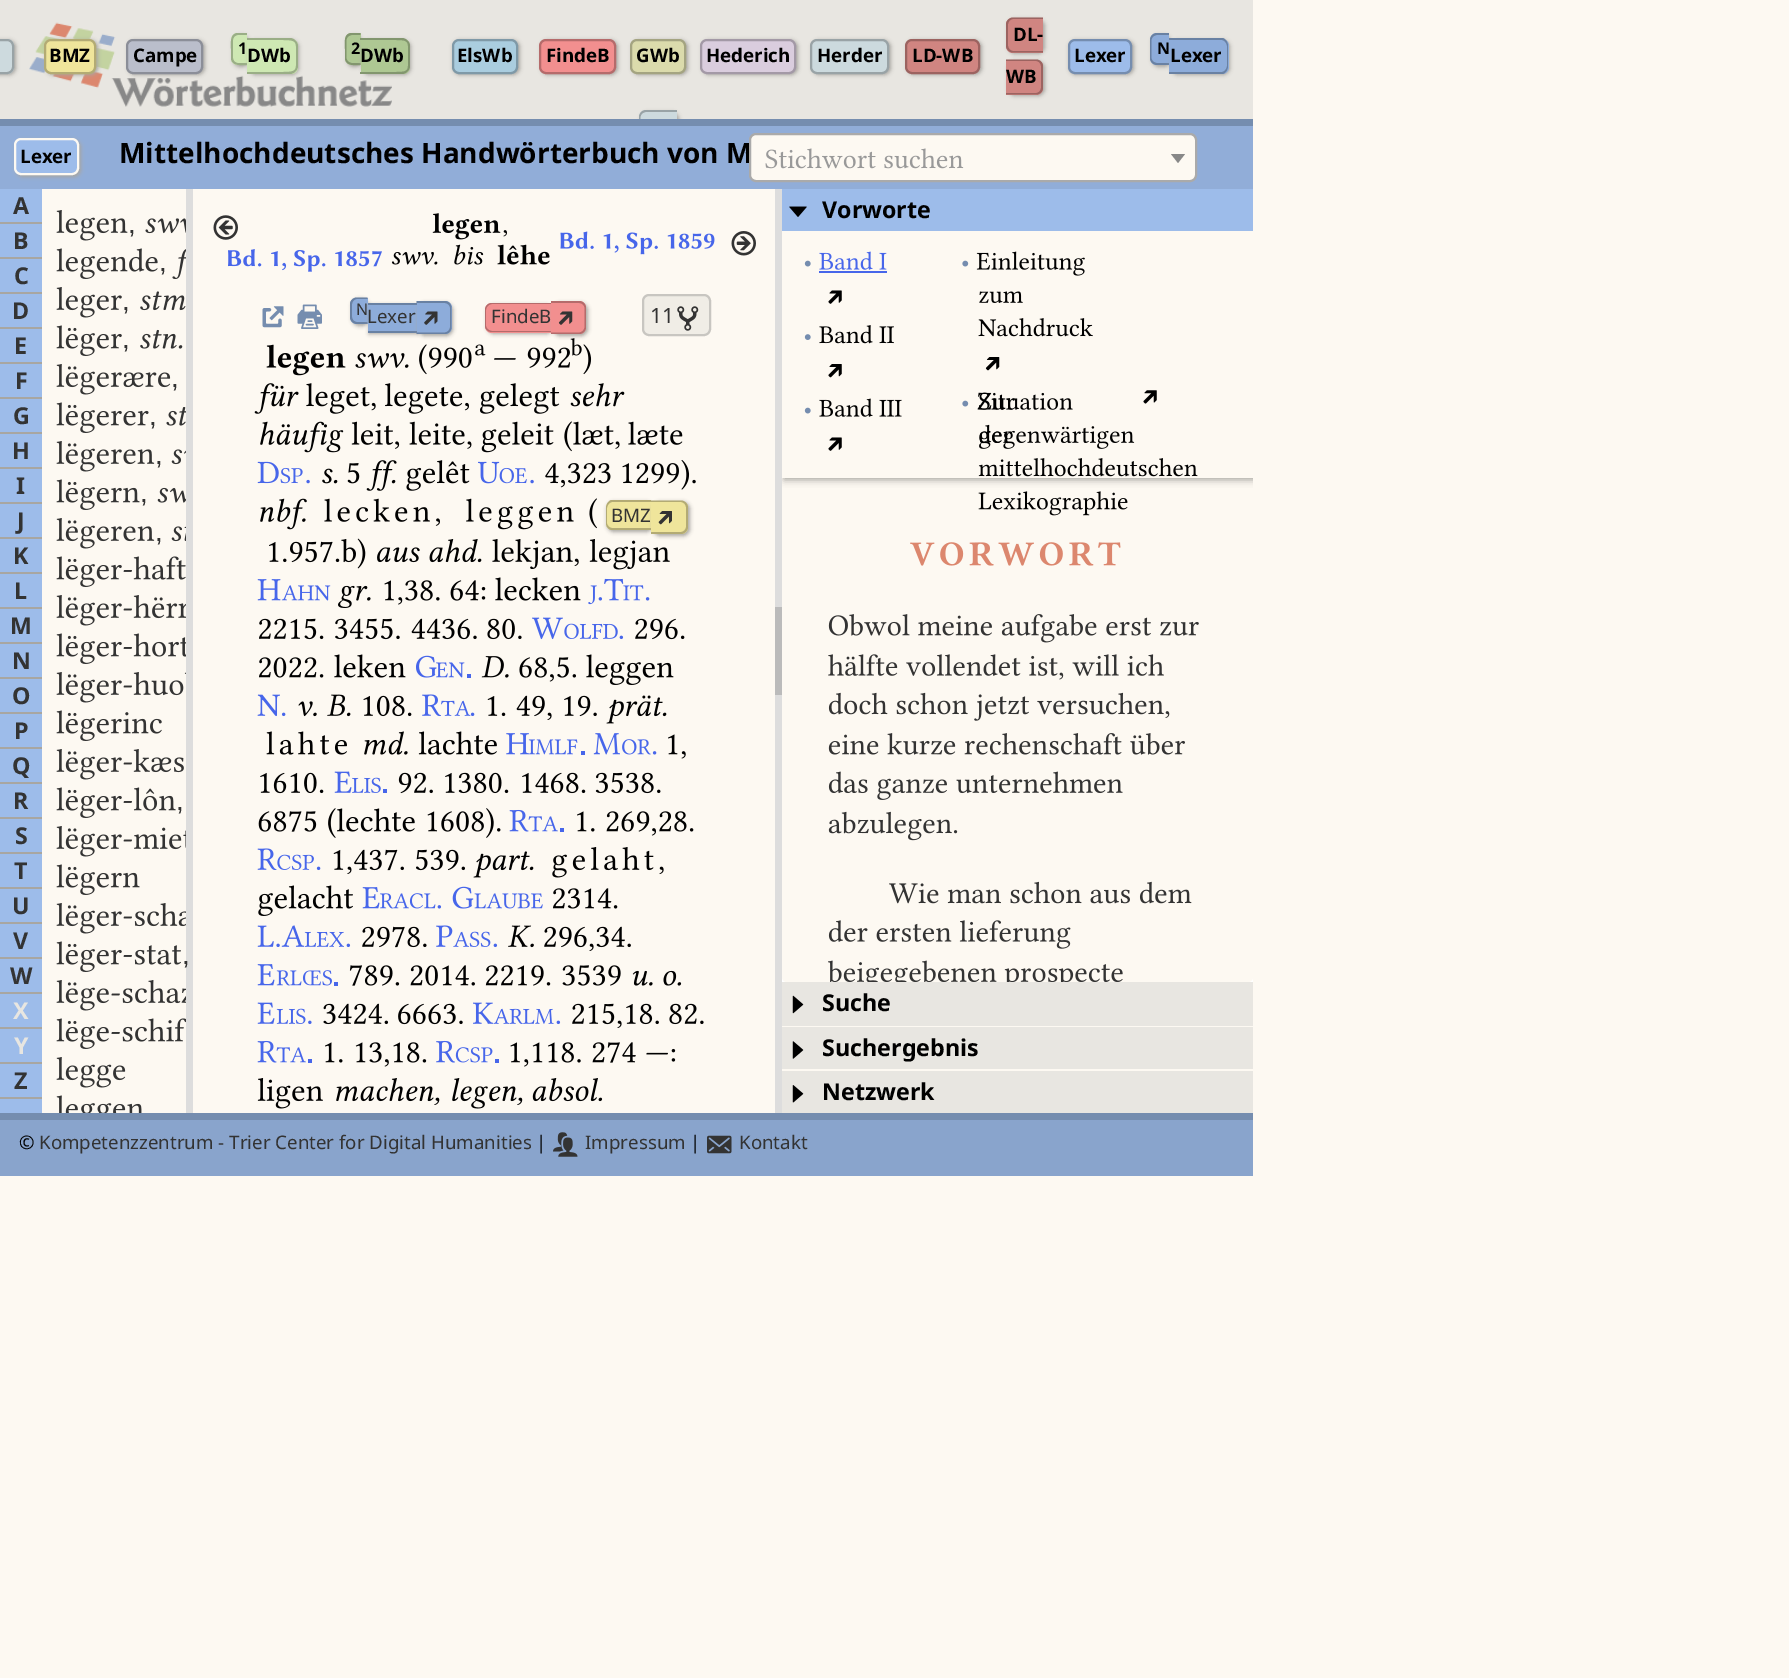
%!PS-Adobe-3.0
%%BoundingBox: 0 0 1789 1678
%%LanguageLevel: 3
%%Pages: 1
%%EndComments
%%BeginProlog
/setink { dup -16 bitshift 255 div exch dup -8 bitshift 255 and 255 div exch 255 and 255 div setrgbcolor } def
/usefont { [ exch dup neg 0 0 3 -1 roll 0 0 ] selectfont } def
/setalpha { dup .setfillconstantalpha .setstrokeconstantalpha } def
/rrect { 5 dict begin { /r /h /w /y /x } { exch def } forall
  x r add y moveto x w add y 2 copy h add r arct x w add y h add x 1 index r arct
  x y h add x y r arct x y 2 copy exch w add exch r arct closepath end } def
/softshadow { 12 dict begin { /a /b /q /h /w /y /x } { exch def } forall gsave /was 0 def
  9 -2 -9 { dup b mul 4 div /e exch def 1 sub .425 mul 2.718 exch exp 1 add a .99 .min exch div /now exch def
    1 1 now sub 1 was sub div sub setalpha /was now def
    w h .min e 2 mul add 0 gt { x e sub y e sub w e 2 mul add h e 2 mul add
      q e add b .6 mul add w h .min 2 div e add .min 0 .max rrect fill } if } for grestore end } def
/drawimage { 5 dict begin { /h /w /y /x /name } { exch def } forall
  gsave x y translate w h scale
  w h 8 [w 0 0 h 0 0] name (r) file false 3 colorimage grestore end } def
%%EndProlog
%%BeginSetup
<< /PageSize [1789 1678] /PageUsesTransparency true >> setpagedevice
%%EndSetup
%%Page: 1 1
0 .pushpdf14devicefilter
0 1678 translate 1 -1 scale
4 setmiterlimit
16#FDF9F2 setink
0 0 1789 1678 rectfill
16#758DAF setink
0 119 1253 7 rectfill
16#E8E6E1 setink
0 0 1253 119 rectfill
(img1.raw) 29 22 363 85 drawimage
16#A8A6A1 setink
-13 40 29 35 7 2 1 softshadow
16#CDDADE setink
0 39 moveto 7 39 lineto 11 39 14 42 14 46 curveto 14 67 lineto 14 71 11 74 7 74 curveto 0 74 lineto closepath fill
16#99A3A6 setink
2 setlinewidth
-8 40 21 33 6 rrect stroke
16#A8A6A1 setink
46 40 52 35 7 2 1 softshadow
16#EFE59B setink
45 40 50 33 6 rrect gsave fill grestore
16#B3AB74 setink
stroke
/NotoSans-Bold 18.7 usefont
16#000000 setink
49 62 moveto (BMZ) show
16#A8A6A1 setink
128 40 77 35 7 2 1 softshadow
16#BABECB setink
127 40 75 33 6 rrect gsave fill grestore
16#8B8E98 setink
stroke
16#000000 setink
133 62 moveto (Campe) show
16#A8A6A1 setink
233 35 16 32 7 2 1 softshadow
16#CEE8B3 setink
238 33 moveto 247 33 lineto 247 65 lineto 238 65 lineto 234 65 231 62 231 58 curveto 231 40 lineto 231 36 234 33 238 33 curveto closepath fill
16#9AAE86 setink
238 33 moveto 247 33 lineto 247 65 lineto 241.5 65 232.5 66.5 231 59 curveto 231 49 lineto 231 43.5 229.5 33 238 33 curveto closepath 238 35 moveto 247 35 lineto 247 63 lineto 238 63 lineto 235 63 233 60.5 233 58 curveto 233 40 lineto 233 37.5 235 35 238 35 curveto closepath eofill
16#A8A6A1 setink
249 40 50 35 7 2 1 softshadow
/NotoSans-Bold 16 usefont
16#000000 setink
238 54 moveto (1) show
16#CEE8B3 setink
247 39 moveto 291 39 lineto 295 39 298 42 298 46 curveto 298 67 lineto 298 71 295 74 291 74 curveto 247 74 lineto closepath fill
16#9AAE86 setink
247 38 moveto 290 38 lineto 294 38 298 42 298 46 curveto 298 66 lineto 298 70 294 74 290 74 curveto 247 74 lineto closepath 247 40 moveto 283 40 lineto 298 40 296 42 296 56 curveto 296 70 298 72 283 72 curveto 247 72 lineto closepath eofill
/NotoSans-Bold 18.7 usefont
16#000000 setink
247 62 moveto (DWb) show
16#A8A6A1 setink
347 35 15 32 7 2 1 softshadow
16#AEC893 setink
352 33 moveto 361 33 lineto 361 65 lineto 352 65 lineto 348 65 345 62 345 58 curveto 345 40 lineto 345 36 348 33 352 33 curveto closepath fill
16#82966E setink
352 33 moveto 360.5 33 lineto 360.5 65 lineto 355 65 346.5 66.5 345 59 curveto 345 49 lineto 345 43.5 343 33 352 33 curveto closepath 352 35 moveto 360.5 35 lineto 360.5 63 lineto 352 63 lineto 349 63 346.5 60.5 346.5 58 curveto 346.5 40 lineto 346.5 37.5 349 35 352 35 curveto closepath eofill
16#A8A6A1 setink
362 40 49 35 7 2 1 softshadow
/NotoSans-Bold 16 usefont
16#000000 setink
351 54 moveto (2) show
16#AEC893 setink
361 39 moveto 403 39 lineto 407 39 410 42 410 46 curveto 410 67 lineto 410 71 407 74 403 74 curveto 361 74 lineto closepath fill
16#82966E setink
360 38 moveto 402 38 lineto 406 38 410 42 410 46 curveto 410 66 lineto 410 70 406 74 402 74 curveto 360 74 lineto closepath 360 40 moveto 396 40 lineto 410 40 408 42 408 56 curveto 408 70 410 72 396 72 curveto 360 72 lineto closepath eofill
/NotoSans-Bold 18.7 usefont
16#000000 setink
360 62 moveto (DWb) show
16#A8A6A1 setink
453 40 67 35 7 2 1 softshadow
16#AACDDF setink
453 40 64 33 6 rrect gsave fill grestore
16#7F99A7 setink
stroke
16#000000 setink
457 62 moveto (ElsWb) show
16#A8A6A1 setink
541 40 77 35 7 2 1 softshadow
16#F28F8F setink
540 40 75 33 6 rrect gsave fill grestore
16#B56B6B setink
stroke
16#000000 setink
546 62 moveto (FindeB) show
16#A8A6A1 setink
632 40 56 35 7 2 1 softshadow
16#DBDBAC setink
631 40 54 33 6 rrect gsave fill grestore
16#A4A481 setink
stroke
16#000000 setink
636 62 moveto (GWb) show
16#A8A6A1 setink
702 40 96 35 7 2 1 softshadow
16#DACDDE setink
701 40 94 33 6 rrect gsave fill grestore
16#A399A6 setink
stroke
16#000000 setink
706 62 moveto (Hederich) show
16#A8A6A1 setink
812 40 79 35 7 2 1 softshadow
16#CCDADE setink
811 40 77 33 6 rrect gsave fill grestore
16#99A3A6 setink
stroke
16#000000 setink
817 62 moveto (Herder) show
16#A8A6A1 setink
907 40 75 35 7 2 1 softshadow
16#D08581 setink
906 40 73 33 6 rrect gsave fill grestore
16#9C6360 setink
stroke
16#000000 setink
912 62 moveto (LD-WB) show
16#A8A6A1 setink
1008 19 37 35 7 2 1 softshadow
16#D08581 setink
1013 18 moveto 1043 18 lineto 1043 53 lineto 1013 53 lineto 1009 53 1006 50 1006 46 curveto 1006 25 lineto 1006 21 1009 18 1013 18 curveto closepath fill
16#9C6360 setink
1013 17.5 moveto 1043 17.5 lineto 1043 52.5 lineto 1013 52.5 lineto 1009.5 52.5 1006 49.5 1006 45.5 curveto 1006 24.5 lineto 1006 20.5 1009.5 17.5 1013 17.5 curveto closepath 1013 19 moveto 1043 19 lineto 1043 51 lineto 1013 51 lineto 1010.5 51 1008 48.5 1008 45.5 curveto 1008 24.5 lineto 1008 21.5 1010.5 19 1013 19 curveto closepath eofill
16#000000 setink
1013 41 moveto (DL-) show
16#A8A6A1 setink
1008 61 37 35 7 2 1 softshadow
16#D08581 setink
1006 60 moveto 1036 60 lineto 1040 60 1043 63 1043 67 curveto 1043 88 lineto 1043 92 1040 95 1036 95 curveto 1006 95 lineto closepath fill
16#9C6360 setink
1006 59.5 moveto 1036 59.5 lineto 1040 59.5 1043 62.5 1043 66.5 curveto 1043 87.5 lineto 1043 91.5 1040 94.5 1036 94.5 curveto 1006 94.5 lineto closepath 1006 61 moveto 1036 61 lineto 1039 61 1041 63.5 1041 66.5 curveto 1041 87.5 lineto 1041 90.5 1039 93 1036 93 curveto 1006 93 lineto closepath eofill
16#000000 setink
1006 83 moveto (WB) show
16#A8A6A1 setink
1069 40 65 35 7 2 1 softshadow
16#9DBCEA setink
1069 40 62 33 6 rrect gsave fill grestore
16#758DAF setink
stroke
16#000000 setink
1074 62 moveto (Lexer) show
16#A8A6A1 setink
1152 35 19 32 7 2 1 softshadow
16#8DACDA setink
1157 33 moveto 1169 33 lineto 1169 65 lineto 1157 65 lineto 1153 65 1150 62 1150 58 curveto 1150 40 lineto 1150 36 1153 33 1157 33 curveto closepath fill
16#6981A3 setink
1157 33 moveto 1169 33 lineto 1169 65 lineto 1157 65 lineto 1153 65 1150 61.5 1150 58 curveto 1150 40 lineto 1150 36.5 1153 33 1157 33 curveto closepath 1157 35 moveto 1169 35 lineto 1169 63 lineto 1157 63 lineto 1154 63 1151.5 60.5 1151.5 58 curveto 1151.5 40 lineto 1151.5 37.5 1154 35 1157 35 curveto closepath eofill
16#A8A6A1 setink
1171 40 59 35 7 2 1 softshadow
/NotoSans-Bold 16 usefont
16#000000 setink
1157 54 moveto (N) show
16#8DACDA setink
1169 39 moveto 1222 39 lineto 1226 39 1229 42 1229 46 curveto 1229 67 lineto 1229 71 1226 74 1222 74 curveto 1169 74 lineto closepath fill
16#6981A3 setink
1169 38 moveto 1222 38 lineto 1225 38 1228 42 1228 46 curveto 1228 66 lineto 1228 70 1225 74 1222 74 curveto 1169 74 lineto closepath 1169 40 moveto 1222 40 lineto 1224 40 1227 43 1227 46 curveto 1227 66 lineto 1227 69 1224 72 1222 72 curveto 1169 72 lineto closepath eofill
/NotoSans-Bold 18.7 usefont
16#000000 setink
1170 62 moveto (Lexer) show
gsave
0 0 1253 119 rectclip
16#A8A6A1 setink
641 112 38 35 7 2 1 softshadow
grestore
16#CDDADE setink
646 110 moveto 677 110 lineto 677 119 lineto 639 119 lineto 639 117 lineto 639 113 642 110 646 110 curveto closepath fill
gsave
0 0 1253 119 rectclip
16#99A3A6 setink
646 110 moveto 677 110 lineto 677 145 lineto 646 145 lineto 642 145 639 142 639 138 curveto 639 117 lineto 639 113.5 642 110 646 110 curveto closepath 646 112 moveto 677 112 lineto 677 143.5 lineto 646 143.5 lineto 643 143.5 640.5 141 640.5 138 curveto 640.5 117 lineto 640.5 114.5 643 112 646 112 curveto closepath eofill
grestore
16#91ADD8 setink
0 126 1253 63 rectfill
16#A8A6A1 setink
16 140 65 37 7 2 1 softshadow
16#9DBCEA setink
15 139 63 35 6 rrect gsave fill grestore
16#FDF9F2 setink
stroke
16#000000 setink
20 163 moveto (Lexer) show
/NotoSans-Bold 28 usefont
119 163 moveto (Mittelhochdeutsches Handwörterbuch von M) show
16#FDF9F2 setink
750 134 446 47 6 rrect gsave fill grestore
16#AAAAAA setink
stroke
(img2.raw) 765 148 199 21 drawimage
16#888888 setink
1171 154 moveto 1185 154 lineto 1178 163 lineto closepath fill
16#DDDDDD setink
186 189 7 924 rectfill
16#FFFFFF setink
782 977 471 5 rectfill
16#FDF9F2 setink
782 231 moveto 1253 231 lineto 1253 977 lineto 1253 980 1251 982 1248 982 curveto 787 982 lineto 784 982 782 980 782 977 curveto closepath fill
gsave
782 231 moveto 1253 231 lineto 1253 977 lineto 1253 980 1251 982 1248 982 curveto 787 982 lineto 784 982 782 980 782 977 curveto closepath clip newpath
16#A8A6A1 setink
784 233 471 247 0 3.5 1 softshadow
grestore
[
    [775 189 7 924 16#DDDDDD]
    [775 607 7 88 16#BBBBBB]
    [0 189 42 924 16#9DBCEA]
    [0 222 42 2 16#A8A6A1]
] { aload pop setink rectfill } forall
/NotoSans-Bold 23.25 usefont
16#333333 setink
13 214 moveto (A) show
16#A8A6A1 setink
0 257 42 2 rectfill
16#333333 setink
13 249 moveto (B) show
16#A8A6A1 setink
0 292 42 2 rectfill
16#333333 setink
14 284 moveto (C) show
16#A8A6A1 setink
0 327 42 2 rectfill
16#333333 setink
12 319 moveto (D) show
16#A8A6A1 setink
0 362 42 2 rectfill
16#333333 setink
14 354 moveto (E) show
16#A8A6A1 setink
0 397 42 2 rectfill
16#333333 setink
15 389 moveto (F) show
16#A8A6A1 setink
0 432 42 2 rectfill
16#333333 setink
13 424 moveto (G) show
16#A8A6A1 setink
0 467 42 2 rectfill
16#333333 setink
12 459 moveto (H) show
16#A8A6A1 setink
0 502 42 2 rectfill
16#333333 setink
16 494 moveto (I) show
16#A8A6A1 setink
0 537 42 2 rectfill
16#333333 setink
17 529 moveto (J) show
16#A8A6A1 setink
0 572 42 2 rectfill
16#333333 setink
13 564 moveto (K) show
16#A8A6A1 setink
0 607 42 2 rectfill
16#333333 setink
14 599 moveto (L) show
16#A8A6A1 setink
0 642 42 2 rectfill
16#333333 setink
10 634 moveto (M) show
16#A8A6A1 setink
0 677 42 2 rectfill
16#333333 setink
12 669 moveto (N) show
16#A8A6A1 setink
0 712 42 2 rectfill
16#333333 setink
12 704 moveto (O) show
16#A8A6A1 setink
0 747 42 2 rectfill
16#333333 setink
14 739 moveto (P) show
16#A8A6A1 setink
0 782 42 2 rectfill
16#333333 setink
12 774 moveto (Q) show
16#A8A6A1 setink
0 817 42 2 rectfill
16#333333 setink
13 809 moveto (R) show
16#A8A6A1 setink
0 852 42 2 rectfill
16#333333 setink
15 844 moveto (S) show
16#A8A6A1 setink
0 887 42 2 rectfill
16#333333 setink
14 879 moveto (T) show
16#A8A6A1 setink
0 922 42 2 rectfill
16#333333 setink
12 914 moveto (U) show
16#A8A6A1 setink
0 957 42 2 rectfill
16#333333 setink
13 949 moveto (V) show
16#A8A6A1 setink
0 992 42 2 rectfill
16#333333 setink
10 984 moveto (W) show
16#A8A6A1 setink
0 1027 42 2 rectfill
16#E8E6E1 setink
13 1019 moveto (X) show
16#A8A6A1 setink
0 1062 42 2 rectfill
16#E8E6E1 setink
14 1054 moveto (Y) show
16#A8A6A1 setink
0 1097 42 2 rectfill
16#333333 setink
14 1089 moveto (Z) show
(img3.raw) 56 210 72 31 drawimage
/LiberationSans-Regular 28 usefont
128 233 moveto (,) show
(img4.raw) 145 218 41 16 drawimage
(img5.raw) 56 248 102 31 drawimage
159 271 moveto (,) show
(img6.raw) 172 249 14 30 drawimage
(img7.raw) 56 287 66 31 drawimage
122 310 moveto (,) show
(img8.raw) 140 291 46 20 drawimage
(img9.raw) 56 325 66 31 drawimage
122 348 moveto (,) show
(img10.raw) 140 329 43 20 drawimage
(img11.raw) 56 364 115 31 drawimage
171 387 moveto (,) show
(img12.raw) 56 402 93 31 drawimage
149 425 moveto (,) show
(img13.raw) 166 407 20 19 drawimage
(img14.raw) 56 441 99 31 drawimage
155 464 moveto (,) show
(img15.raw) 171 449 15 16 drawimage
(img16.raw) 56 479 84 31 drawimage
140 502 moveto (,) show
(img17.raw) 157 487 29 16 drawimage
(img14.raw) 56 518 99 31 drawimage
155 541 moveto (,) show
(img18.raw) 171 526 15 16 drawimage
(img19.raw) 56 556 130 31 drawimage
(img20.raw) 56 595 130 31 drawimage
(img21.raw) 56 633 130 31 drawimage
(img22.raw) 56 672 130 31 drawimage
(img23.raw) 56 710 106 31 drawimage
(img24.raw) 56 749 128 31 drawimage
(img25.raw) 56 787 120 31 drawimage
176 810 moveto (,) show
(img26.raw) 56 826 130 31 drawimage
(img16.raw) 56 864 84 31 drawimage
(img27.raw) 56 903 130 31 drawimage
(img28.raw) 56 941 125 31 drawimage
182 964 moveto (,) show
(img29.raw) 56 980 130 31 drawimage
(img30.raw) 56 1018 130 31 drawimage
(img31.raw) 56 1057 70 31 drawimage
(img32.raw) 56 1095 86 18 drawimage
(img33.raw) 213 215 25 25 drawimage
(img34.raw) 228 249 154 23 drawimage
(img35.raw) 432 213 69 27 drawimage
(img36.raw) 503 230 4 7 drawimage
(img37.raw) 391 252 47 13 drawimage
(img38.raw) 454 244 30 21 drawimage
(img39.raw) 497 244 53 21 drawimage
(img40.raw) 560 231 155 24 drawimage
(img41.raw) 731 231 25 25 drawimage
(img42.raw) 262 306 22 22 drawimage
(img43.raw) 297 304 25 25 drawimage
16#A8A6A1 setink
352 299 17 27 7 2 1 softshadow
16#8DACDA setink
357 298 moveto 368 298 lineto 368 324 lineto 357 324 lineto 353 324 350 321 350 317 curveto 350 305 lineto 350 301 353 298 357 298 curveto closepath fill
16#6981A3 setink
357 297.5 moveto 367.5 297.5 lineto 367.5 324 lineto 357 324 lineto 353 324 350 320.5 350 317 curveto 350 304.5 lineto 350 300.5 353 297.5 357 297.5 curveto closepath 357 299 moveto 367.5 299 lineto 367.5 322 lineto 357 322 lineto 354 322 352 319.5 352 317 curveto 352 304.5 lineto 352 301.5 354 299 357 299 curveto closepath eofill
16#A8A6A1 setink
369 305 49 29 0 2 1 softshadow
[
    [368 305 49 26 16#8DACDA]
    [368 303 49 2 16#6981A3]
    [368 331 49 2 16#6981A3]
] { aload pop setink rectfill } forall
16#A8A6A1 setink
418 303 35 33 7 2 1 softshadow
16#8DACDA setink
417 301 moveto 445 301 lineto 449 301 452 304 452 308 curveto 452 327 lineto 452 331 449 334 445 334 curveto 417 334 lineto closepath fill
16#6981A3 setink
416.5 301 moveto 444.5 301 lineto 448.5 301 451.5 304 451.5 308 curveto 451.5 327 lineto 451.5 331 448.5 334 444.5 334 curveto 416.5 334 lineto closepath 416.5 303 moveto 444.5 303 lineto 447.5 303 450 305 450 308 curveto 450 327 lineto 450 330 447.5 332.5 444.5 332.5 curveto 416.5 332.5 lineto closepath eofill
/NotoSans-Regular 16 usefont
16#333333 setink
356 315 moveto (N) show
/NotoSans-Regular 18.7 usefont
367 323 moveto (Lexer) show
(img44.raw) 424 311 14 14 drawimage
16#A8A6A1 setink
487 305 66 29 7 2 1 softshadow
16#F28F8F setink
492 303 moveto 551 303 lineto 551 333 lineto 492 333 lineto 488 333 485 330 485 326 curveto 485 310 lineto 485 306 488 303 492 303 curveto closepath fill
16#B56B6B setink
492 303 moveto 551 303 lineto 551 332 lineto 492 332 lineto 488 332 485 329 485 326 curveto 485 310 lineto 485 306 488 303 492 303 curveto closepath 492 304 moveto 551 304 lineto 551 331 lineto 492 331 lineto 489 331 486 328 486 326 curveto 486 310 lineto 486 307 489 304 492 304 curveto closepath eofill
16#A8A6A1 setink
553 303 35 33 7 2 1 softshadow
16#F28F8F setink
551 301 moveto 579 301 lineto 583 301 586 304 586 308 curveto 586 327 lineto 586 331 583 334 579 334 curveto 551 334 lineto closepath fill
16#B56B6B setink
551 301 moveto 579 301 lineto 583 301 586 304 586 308 curveto 586 327 lineto 586 331 583 334 579 334 curveto 551 334 lineto closepath 551 303 moveto 579 303 lineto 582 303 584.5 305 584.5 308 curveto 584.5 327 lineto 584.5 330 582 332.5 579 332.5 curveto 551 332.5 lineto closepath eofill
16#333333 setink
491 323 moveto (FindeB) show
(img45.raw) 558 311 15 14 drawimage
16#F0EDE6 setink
643 295 67 40 6 rrect gsave fill grestore
16#C8C6C1 setink
stroke
/NotoSans-Regular 21 usefont
16#333333 setink
650 323 moveto (11) show
(img46.raw) 677 306 22 25 drawimage
(img47.raw) 266 344 80 32 drawimage
(img48.raw) 355 353 54 15 drawimage
(img49.raw) 419 344 53 31 drawimage
(img50.raw) 475 344 11 12 drawimage
(img51.raw) 494 358 22 2 drawimage
(img52.raw) 527 347 43 21 drawimage
(img53.raw) 570 338 12 18 drawimage
(img54.raw) 583 344 9 31 drawimage
(img55.raw) 254 383 45 31 drawimage
(img56.raw) 306 383 70 31 drawimage
(img57.raw) 385 383 84 31 drawimage
(img58.raw) 480 383 80 31 drawimage
(img59.raw) 570 383 55 24 drawimage
(img60.raw) 260 421 84 32 drawimage
(img61.raw) 351 421 49 28 drawimage
(img62.raw) 409 421 63 28 drawimage
(img63.raw) 481 421 73 32 drawimage
(img64.raw) 564 421 56 31 drawimage
(img65.raw) 628 421 55 24 drawimage
(img66.raw) 257 461 22 23 drawimage
(img67.raw) 280 467 23 17 drawimage
(img68.raw) 306 479 4 5 drawimage
(img69.raw) 322 468 16 16 drawimage
(img70.raw) 347 463 13 21 drawimage
(img71.raw) 366 460 31 31 drawimage
(img72.raw) 406 460 64 31 drawimage
(img73.raw) 478 461 22 23 drawimage
(img74.raw) 499 467 28 17 drawimage
(img68.raw) 530 479 4 5 drawimage
(img75.raw) 545 463 66 25 drawimage
(img76.raw) 622 463 57 21 drawimage
(img77.raw) 681 460 15 30 drawimage
(img78.raw) 260 498 47 32 drawimage
(img79.raw) 324 498 116 28 drawimage
(img80.raw) 466 498 108 32 drawimage
(img81.raw) 589 498 8 31 drawimage
16#A8A6A1 setink
607 502 46 30 7 2 1 softshadow
16#EFE59B setink
613 501 moveto 651 501 lineto 651 530 lineto 613 530 lineto 609 530 606 527 606 523 curveto 606 508 lineto 606 504 609 501 613 501 curveto closepath fill
16#B3AB74 setink
612 500 moveto 651 500 lineto 651 530 lineto 612 530 lineto 609 530 606 527 606 523 curveto 606 508 lineto 606 504 609 500 612 500 curveto closepath 612 502 moveto 651 502 lineto 651 528 lineto 612 528 lineto 610 528 607 526 607 523 curveto 607 508 lineto 607 505 610 502 612 502 curveto closepath eofill
16#A8A6A1 setink
653 502 37 34 7 2 1 softshadow
16#EFE59B setink
651 501 moveto 681 501 lineto 685 501 688 504 688 508 curveto 688 527 lineto 688 531 685 534 681 534 curveto 651 534 lineto closepath fill
16#B3AB74 setink
651 500.5 moveto 681 500.5 lineto 684.5 500.5 688 503.5 688 507.5 curveto 688 527 lineto 688 530.5 684.5 534 681 534 curveto 651 534 lineto closepath 651 502 moveto 681 502 lineto 683.5 502 686 504.5 686 507.5 curveto 686 527 lineto 686 529.5 683.5 532 681 532 curveto 651 532 lineto closepath eofill
/NotoSans-Regular 18.7 usefont
16#333333 setink
611 522 moveto (BMZ) show
(img82.raw) 658 511 14 14 drawimage
(img83.raw) 269 539 87 24 drawimage
(img84.raw) 357 538 9 31 drawimage
(img85.raw) 377 547 43 16 drawimage
(img86.raw) 429 539 53 24 drawimage
(img87.raw) 492 539 87 30 drawimage
(img88.raw) 589 539 81 31 drawimage
(img89.raw) 257 579 24 22 drawimage
(img90.raw) 281 585 50 16 drawimage
(img91.raw) 338 585 33 23 drawimage
(img92.raw) 384 580 56 25 drawimage
(img93.raw) 450 580 29 21 drawimage
(img94.raw) 481 586 5 14 drawimage
(img95.raw) 495 577 86 24 drawimage
(img96.raw) 588 585 9 20 drawimage
(img97.raw) 598 578 26 23 drawimage
(img98.raw) 623 585 21 16 drawimage
(img99.raw) 645 597 5 4 drawimage
(img100.raw) 259 618 65 22 drawimage
(img101.raw) 335 618 65 22 drawimage
(img102.raw) 411 618 66 22 drawimage
(img103.raw) 487 618 35 22 drawimage
(img104.raw) 532 617 31 23 drawimage
(img105.raw) 564 623 54 16 drawimage
(img106.raw) 619 635 5 5 drawimage
(img107.raw) 635 618 50 22 drawimage
(img108.raw) 259 657 65 21 drawimage
(img109.raw) 334 654 72 24 drawimage
(img110.raw) 416 655 21 23 drawimage
(img111.raw) 436 662 29 16 drawimage
16#4766EA setink
467 674 4 4 rectfill
(img112.raw) 481 656 28 22 drawimage
(img113.raw) 519 657 57 25 drawimage
(img114.raw) 586 654 88 31 drawimage
(img115.raw) 257 694 29 23 drawimage
(img116.raw) 298 701 19 16 drawimage
(img117.raw) 327 694 24 23 drawimage
(img118.raw) 363 695 49 22 drawimage
(img119.raw) 422 694 19 23 drawimage
(img120.raw) 441 700 30 16 drawimage
(img121.raw) 470 712 5 5 drawimage
(img122.raw) 487 696 19 21 drawimage
(img123.raw) 516 695 36 25 drawimage
(img124.raw) 564 695 33 22 drawimage
(img125.raw) 606 695 61 29 drawimage
(img126.raw) 266 731 81 24 drawimage
(img127.raw) 364 731 44 24 drawimage
(img128.raw) 418 731 79 24 drawimage
(img129.raw) 506 733 23 22 drawimage
(img130.raw) 528 739 50 16 drawimage
581 751 4 4 rectfill
(img131.raw) 593 733 27 22 drawimage
(img132.raw) 622 739 29 16 drawimage
(img99.raw) 652 751 5 4 drawimage
(img133.raw) 668 734 18 25 drawimage
(img134.raw) 260 772 64 22 drawimage
(img135.raw) 334 771 18 22 drawimage
(img136.raw) 352 777 29 16 drawimage
383 789 4 4 rectfill
(img137.raw) 398 772 35 22 drawimage
(img138.raw) 445 772 64 22 drawimage
(img139.raw) 522 772 64 22 drawimage
(img140.raw) 595 772 66 22 drawimage
(img141.raw) 258 811 59 21 drawimage
(img142.raw) 328 808 87 30 drawimage
(img143.raw) 427 808 74 30 drawimage
(img144.raw) 509 809 20 23 drawimage
(img145.raw) 528 816 30 16 drawimage
560 828 4 4 rectfill
(img146.raw) 577 811 18 21 drawimage
(img147.raw) 606 811 88 25 drawimage
(img148.raw) 257 848 20 22 drawimage
(img149.raw) 277 854 37 16 drawimage
(img150.raw) 316 866 5 5 drawimage
(img151.raw) 333 849 71 25 drawimage
(img152.raw) 416 849 49 22 drawimage
(img153.raw) 473 851 61 27 drawimage
(img154.raw) 552 847 112 31 drawimage
(img155.raw) 258 885 95 31 drawimage
(img156.raw) 362 887 18 22 drawimage
(img157.raw) 380 893 56 16 drawimage
(img158.raw) 437 905 5 4 drawimage
(img159.raw) 452 886 22 23 drawimage
(img160.raw) 474 893 69 16 drawimage
(img161.raw) 553 888 65 21 drawimage
(img162.raw) 257 925 48 22 drawimage
(img163.raw) 304 931 40 16 drawimage
(img106.raw) 346 943 5 5 drawimage
(img164.raw) 362 926 65 22 drawimage
(img165.raw) 436 925 17 22 drawimage
(img166.raw) 453 931 38 16 drawimage
(img106.raw) 493 943 5 5 drawimage
(img167.raw) 508 925 26 23 drawimage
(img168.raw) 544 926 87 25 drawimage
(img156.raw) 257 964 18 22 drawimage
(img169.raw) 276 970 56 16 drawimage
334 982 4 4 rectfill
(img170.raw) 349 965 51 21 drawimage
(img171.raw) 410 965 65 21 drawimage
(img172.raw) 485 965 66 21 drawimage
(img173.raw) 562 965 59 21 drawimage
(img174.raw) 632 970 21 16 drawimage
(img175.raw) 663 970 19 16 drawimage
(img135.raw) 257 1002 18 22 drawimage
(img176.raw) 276 1008 30 16 drawimage
(img177.raw) 308 1020 4 5 drawimage
(img178.raw) 323 1003 66 22 drawimage
(img179.raw) 398 1003 65 22 drawimage
(img180.raw) 473 1002 21 22 drawimage
(img181.raw) 493 1008 61 16 drawimage
(img106.raw) 556 1020 5 5 drawimage
(img182.raw) 572 1003 87 25 drawimage
(img183.raw) 669 1003 35 22 drawimage
(img144.raw) 257 1040 20 23 drawimage
(img145.raw) 276 1047 30 16 drawimage
308 1059 4 4 rectfill
(img146.raw) 325 1042 18 21 drawimage
(img184.raw) 355 1042 72 25 drawimage
(img185.raw) 436 1040 19 23 drawimage
(img186.raw) 455 1047 38 16 drawimage
495 1059 4 4 rectfill
(img187.raw) 510 1042 71 25 drawimage
(img188.raw) 592 1042 44 21 drawimage
(img189.raw) 646 1048 30 14 drawimage
(img190.raw) 257 1078 66 31 drawimage
(img191.raw) 336 1078 104 27 drawimage
(img192.raw) 452 1078 71 31 drawimage
(img193.raw) 532 1078 71 24 drawimage
16#9DBCEA setink
782 189 471 42 rectfill
(img194.raw) 789 206 18 11 drawimage
/NotoSans-Bold 23.25 usefont
16#000000 setink
822 218 moveto (Vorworte) show
16#FDF9F2 setink
782 231 471 247 rectfill
(img195.raw) 804 260 7 7 drawimage
(img196.raw) 819 251 68 19 drawimage
16#4766EA setink
819 271 68 2 rectfill
(img197.raw) 828 290 14 14 drawimage
(img198.raw) 962 260 7 7 drawimage
(img199.raw) 976 251 109 25 drawimage
(img200.raw) 979 291 44 12 drawimage
(img201.raw) 978 318 115 19 drawimage
(img202.raw) 985 357 15 14 drawimage
(img203.raw) 804 334 7 6 drawimage
(img204.raw) 819 325 75 19 drawimage
(img205.raw) 828 364 14 14 drawimage
(img195.raw) 804 407 7 7 drawimage
(img206.raw) 819 398 83 19 drawimage
(img197.raw) 828 437 14 14 drawimage
(img207.raw) 977 392 38 18 drawimage
(img208.raw) 1143 390 14 14 drawimage
(img198.raw) 962 400 7 7 drawimage
(img209.raw) 979 392 94 18 drawimage
(img211.raw) 979 426 156 23 drawimage
(img210.raw) 979 424 33 19 drawimage
(img212.raw) 978 458 220 19 drawimage
(img213.raw) 978 491 150 25 drawimage
(img214.raw) 910 542 211 24 drawimage
(img215.raw) 828 614 371 29 drawimage
(img216.raw) 828 654 336 26 drawimage
(img217.raw) 828 692 342 29 drawimage
(img218.raw) 828 733 357 22 drawimage
(img219.raw) 828 771 295 29 drawimage
(img220.raw) 828 811 130 30 drawimage
(img221.raw) 889 881 303 23 drawimage
(img222.raw) 828 920 243 29 drawimage
(img223.raw) 828 960 295 22 drawimage
16#E8E6E1 setink
782 982 471 44 rectfill
(img224.raw) 792 995 12 19 drawimage
16#000000 setink
822 1011 moveto (Suche) show
16#E8E6E1 setink
782 1027 471 42 rectfill
(img225.raw) 792 1041 12 18 drawimage
16#000000 setink
822 1056 moveto (Suchergebnis) show
16#E8E6E1 setink
782 1071 471 42 rectfill
(img226.raw) 792 1085 12 18 drawimage
16#000000 setink
822 1100 moveto (Netzwerk) show
16#758DAF setink
0 1113 1253 7 rectfill
16#89A4CC setink
0 1120 1253 56 rectfill
/NotoSans-Regular 18.7 usefont
16#000000 setink
19 1149 moveto (©) show
16#333333 setink
39 1149 moveto (Kompetenzzentrum - Trier Center for Digital Humanities) show
16#000000 setink
536 1149 moveto (|) show
(img227.raw) 553 1132 25 25 drawimage
16#333333 setink
585 1149 moveto (Impressum) show
16#000000 setink
690 1149 moveto (|) show
(img228.raw) 707 1135 25 19 drawimage
16#333333 setink
739 1149 moveto (Kontakt) show
.poppdf14devicefilter showpage
%%EOF
